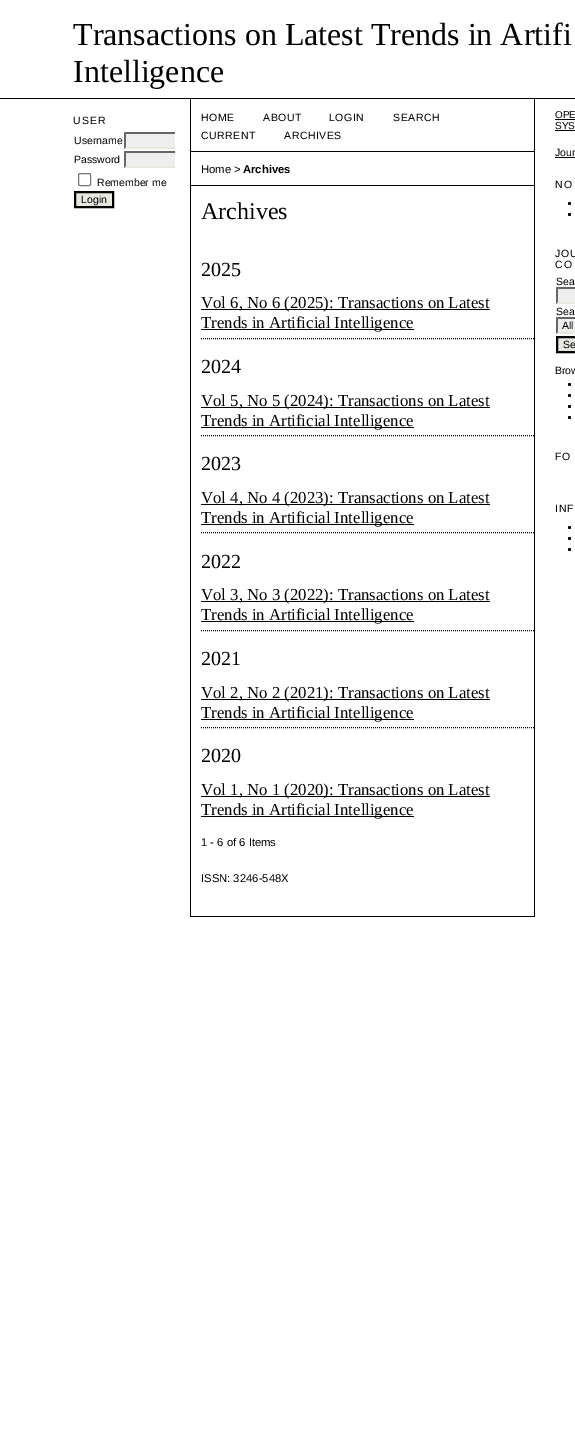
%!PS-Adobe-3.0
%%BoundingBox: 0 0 575 1449
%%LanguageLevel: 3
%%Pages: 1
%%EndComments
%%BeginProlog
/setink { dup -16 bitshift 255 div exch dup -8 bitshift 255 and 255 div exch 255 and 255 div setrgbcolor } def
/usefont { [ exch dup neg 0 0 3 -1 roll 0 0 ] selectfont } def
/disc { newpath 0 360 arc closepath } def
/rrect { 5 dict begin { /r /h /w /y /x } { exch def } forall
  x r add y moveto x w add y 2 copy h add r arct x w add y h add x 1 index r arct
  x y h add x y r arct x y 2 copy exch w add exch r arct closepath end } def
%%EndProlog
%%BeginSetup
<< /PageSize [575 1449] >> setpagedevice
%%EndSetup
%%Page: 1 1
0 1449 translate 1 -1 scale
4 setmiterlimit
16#FFFFFF setink
0 0 575 1449 rectfill
16#000000 setink
0 98 575 1 rectfill
/LiberationSerif-Regular 32 usefont
73 45 moveto (Transactions on Latest Trends in Artifi) show
73 82 moveto (Intelligence) show
/LiberationSans-Regular 10.5 usefont
73 124 moveto 1 0 (USER) ashow
74 144 moveto (Username) show
16#EEEEEE setink
124 132 51 17 rectfill
gsave
73 99 102 136 rectclip
16#666666 setink
124 132 moveto 218 132 lineto 216 134 lineto 126 134 lineto closepath fill
16#E8E8E1 setink
218 149 moveto 124 149 lineto 126 147 lineto 216 147 lineto closepath fill
grestore
16#666666 setink
124 149 moveto 124 132 lineto 126 134 lineto 126 147 lineto closepath fill
16#000000 setink
74 163 moveto (Password) show
16#EEEEEE setink
124 151 51 17 rectfill
gsave
73 99 102 136 rectclip
16#666666 setink
124 151 moveto 218 151 lineto 216 153 lineto 126 153 lineto closepath fill
16#E8E8E1 setink
218 168 moveto 124 168 lineto 126 166 lineto 216 166 lineto closepath fill
grestore
16#666666 setink
124 168 moveto 124 151 lineto 126 153 lineto 126 166 lineto closepath fill
16#767676 setink
78.5 173.5 12 12 1.5 rrect stroke
16#000000 setink
97 186 moveto (Remember me) show
16#E8E8E1 setink
75 192 moveto 113 192 lineto 113 207 lineto 75 207 lineto closepath gsave fill grestore
16#000000 setink
2 setlinewidth
stroke
81 203 moveto (Login) show
/LiberationSans-Regular 10 usefont
555 118 moveto (OPE) show
555 119 20 1 rectfill
555 129 moveto (SYS) show
555 130 20 1 rectfill
/LiberationSans-Regular 10.5 usefont
555 156 moveto (Jour) show
555 157 20 1 rectfill
555 188 moveto 1 0 (NO) ashow
569.5 203.5 1.5 disc fill
569.5 214.5 1.5 disc fill
555 257 moveto 1 0 (JOU) ashow
555 268 moveto 1 0 (CO) ashow
556 285 moveto (Sea) show
16#EEEEEE setink
556 287 19 17 rectfill
16#666666 setink
556 287 moveto 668 287 lineto 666 289 lineto 558 289 lineto closepath fill
16#E8E8E1 setink
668 304 moveto 556 304 lineto 558 302 lineto 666 302 lineto closepath fill
16#666666 setink
556 304 moveto 556 287 lineto 558 289 lineto 558 302 lineto closepath fill
16#000000 setink
556 315 moveto (Sea) show
16#EEEEEE setink
556 317 19 17 rectfill
16#666666 setink
556 317 moveto 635 317 lineto 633 319 lineto 558 319 lineto closepath fill
16#E8E8E1 setink
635 334 moveto 556 334 lineto 558 332 lineto 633 332 lineto closepath fill
16#666666 setink
556 334 moveto 556 317 lineto 558 319 lineto 558 332 lineto closepath fill
16#000000 setink
562 329 moveto (All) show
16#E8E8E1 setink
557 337 moveto 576 337 lineto 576 352 lineto 557 352 lineto closepath gsave fill grestore
16#000000 setink
stroke
563 348 moveto (Se) show
555 374 moveto (Brow) show
569.5 384.5 1.5 disc fill
569.5 395.5 1.5 disc fill
569.5 406.5 1.5 disc fill
569.5 417.5 1.5 disc fill
555 460 moveto 1 0 (FO) ashow
555 512 moveto 1 0 (INF) ashow
569.5 527.5 1.5 disc fill
569.5 538.5 1.5 disc fill
569.5 549.5 1.5 disc fill
[
    [534 99 1 818 16#000000]
    [190 916 345 1 16#000000]
    [190 99 1 818 16#000000]
    [191 151 343 1 16#000000]
] { aload pop setink rectfill } forall
201 121 moveto 0.5 0 (HOME) ashow
263 121 moveto 0.5 0 (ABOUT) ashow
329 121 moveto 0.5 0 (LOGIN) ashow
393 121 moveto 0.5 0 (SEARCH) ashow
201 139 moveto 0.5 0 (CURRENT) ashow
284 139 moveto 0.5 0 (ARCHIVES) ashow
191 185 343 1 rectfill
/LiberationSans-Regular 11.25 usefont
201 173 moveto (Home >) show
/LiberationSans-Bold 11.25 usefont
243 173 moveto (Archives) show
/LiberationSerif-Regular 24 usefont
201 219 moveto (Archives) show
/LiberationSerif-Regular 20 usefont
201 276 moveto (2025) show
201 309 289 1 rectfill
/LiberationSerif-Regular 16.75 usefont
201 308 moveto (Vol 6, No 6 \(2025\): Transactions on Latest) show
201 329 213 1 rectfill
201 328 moveto (Trends in Artificial Intelligence) show
1 setlinewidth
[1 1] 0 setdash
201 338.5 moveto 534 338.5 lineto stroke
/LiberationSerif-Regular 20 usefont
201 373 moveto (2024) show
201 407 289 1 rectfill
/LiberationSerif-Regular 16.75 usefont
201 406 moveto (Vol 5, No 5 \(2024\): Transactions on Latest) show
201 427 213 1 rectfill
201 426 moveto (Trends in Artificial Intelligence) show
201 435.5 moveto 534 435.5 lineto stroke
/LiberationSerif-Regular 20 usefont
201 470 moveto (2023) show
201 504 289 1 rectfill
/LiberationSerif-Regular 16.75 usefont
201 503 moveto (Vol 4, No 4 \(2023\): Transactions on Latest) show
201 524 213 1 rectfill
201 523 moveto (Trends in Artificial Intelligence) show
201 532.5 moveto 534 532.5 lineto stroke
/LiberationSerif-Regular 20 usefont
201 568 moveto (2022) show
201 601 289 1 rectfill
/LiberationSerif-Regular 16.75 usefont
201 600 moveto (Vol 3, No 3 \(2022\): Transactions on Latest) show
201 621 213 1 rectfill
201 620 moveto (Trends in Artificial Intelligence) show
201 630.5 moveto 534 630.5 lineto stroke
/LiberationSerif-Regular 20 usefont
201 665 moveto (2021) show
201 699 289 1 rectfill
/LiberationSerif-Regular 16.75 usefont
201 698 moveto (Vol 2, No 2 \(2021\): Transactions on Latest) show
201 719 213 1 rectfill
201 718 moveto (Trends in Artificial Intelligence) show
201 727.5 moveto 534 727.5 lineto stroke
/LiberationSerif-Regular 20 usefont
201 762 moveto (2020) show
201 796 289 1 rectfill
/LiberationSerif-Regular 16.75 usefont
201 795 moveto (Vol 1, No 1 \(2020\): Transactions on Latest) show
201 816 213 1 rectfill
201 815 moveto (Trends in Artificial Intelligence) show
/LiberationSans-Regular 11.25 usefont
201 846 moveto (1 - 6 of 6 Items) show
201 882 moveto (ISSN: 3246-548X) show
showpage
%%EOF
